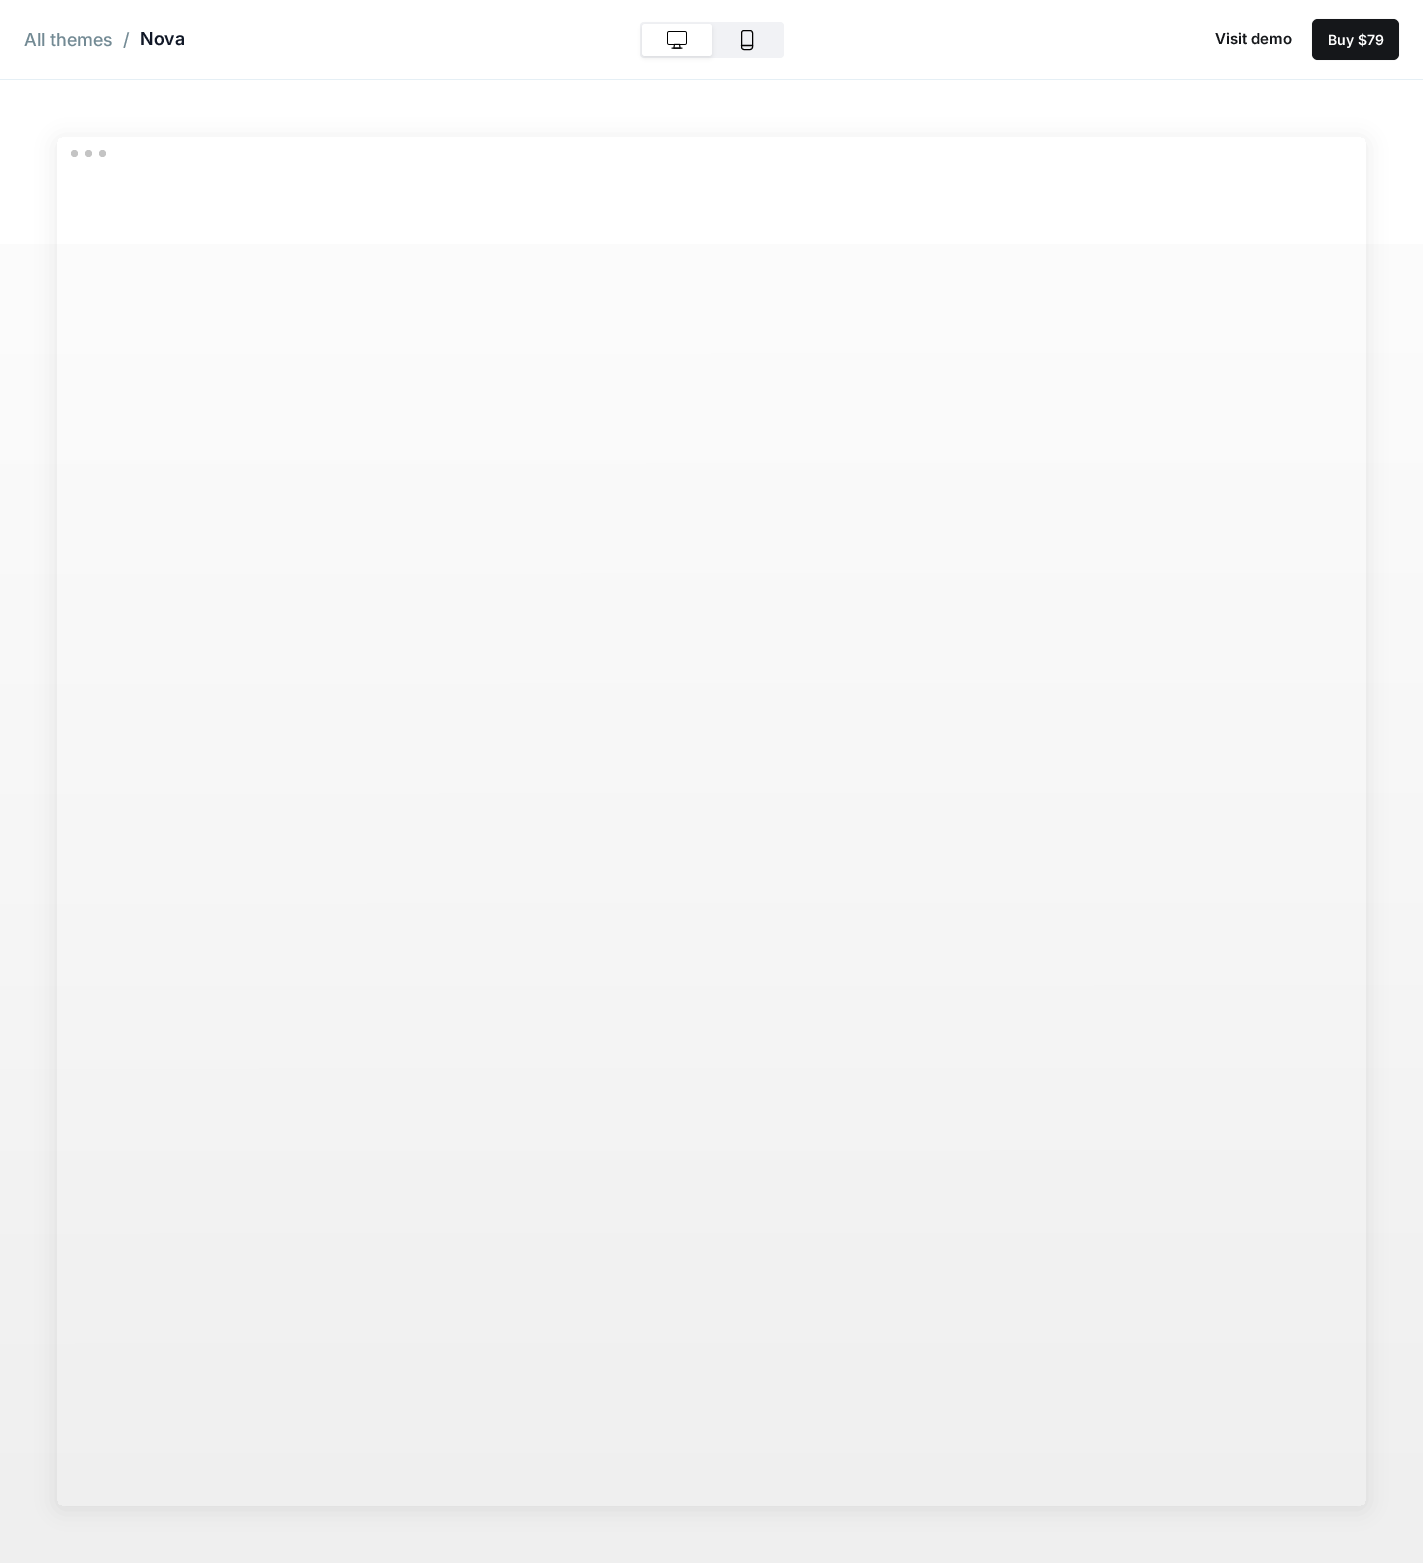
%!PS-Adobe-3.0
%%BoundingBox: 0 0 1423 1563
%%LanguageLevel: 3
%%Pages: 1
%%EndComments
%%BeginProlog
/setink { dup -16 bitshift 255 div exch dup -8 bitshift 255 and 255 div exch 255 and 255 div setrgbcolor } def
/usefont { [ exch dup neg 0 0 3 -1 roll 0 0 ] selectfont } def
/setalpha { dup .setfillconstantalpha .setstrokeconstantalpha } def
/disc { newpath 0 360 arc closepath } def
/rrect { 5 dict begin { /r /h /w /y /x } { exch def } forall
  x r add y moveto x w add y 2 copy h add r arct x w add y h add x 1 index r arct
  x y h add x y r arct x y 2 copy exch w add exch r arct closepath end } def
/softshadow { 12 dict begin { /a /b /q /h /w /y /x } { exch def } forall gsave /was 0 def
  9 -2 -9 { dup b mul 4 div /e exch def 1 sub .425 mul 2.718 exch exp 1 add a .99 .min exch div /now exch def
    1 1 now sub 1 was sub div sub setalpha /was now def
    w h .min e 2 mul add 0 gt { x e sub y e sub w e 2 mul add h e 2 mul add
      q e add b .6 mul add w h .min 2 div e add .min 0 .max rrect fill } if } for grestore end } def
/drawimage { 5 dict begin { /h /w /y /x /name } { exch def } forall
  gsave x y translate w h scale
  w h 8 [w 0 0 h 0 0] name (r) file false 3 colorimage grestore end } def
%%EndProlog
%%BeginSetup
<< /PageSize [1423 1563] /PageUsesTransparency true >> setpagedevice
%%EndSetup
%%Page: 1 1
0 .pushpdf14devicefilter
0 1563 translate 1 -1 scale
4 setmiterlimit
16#FFFFFF setink
0 0 1423 1563 rectfill
gsave 0 244 moveto 1423 244 lineto 1423 1563 lineto 0 1563 lineto closepath clip newpath
<< /ShadingType 2 /ColorSpace /DeviceRGB /Coords [711 0 712 1563] /Extend [true true] /Function << /FunctionType 2 /Domain [0 1] /C0 [1 1 1] /C1 [0.937 0.937 0.937] /N 1 >> >> shfill grestore
16#E5EFF5 setink
0 79 1423 1 rectfill
/Inter-Medium 18 usefont
16#738A94 setink
24 46 moveto (All themes) show
123 46 moveto (/) show
/Inter-SemiBold 18 usefont
16#111827 setink
140 45 moveto (Nova) show
16#F1F2F5 setink
640 22 144 36 4 rrect fill
16#000000 setink
642 26 70 32 3 2 0.08 softshadow
16#FFFFFF setink
642 24 70 32 3 rrect fill
(img1.raw) 667 31 20 18 drawimage
16#000000 setink
741.5 30.5 11 19 2.5 rrect stroke
1.2 setlinewidth
1 setlinecap
1 setlinejoin
741.5 45.5 moveto 752.5 45.5 lineto stroke
/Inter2-SemiBold 15 usefont
16#15171A setink
1215 44 moveto (Visit demo) show
16#000000 setink
1312 19 87 41 6 0.5 0.1 softshadow
16#15171A setink
1312 19 87 41 6 rrect fill
/Inter2-SemiBold 14 usefont
16#FFFFFF setink
1328 45 moveto (Buy $79) show
gsave
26 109 moveto 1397 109 lineto 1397 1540 lineto 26 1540 lineto closepath 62 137 moveto 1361 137 lineto 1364 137 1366 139 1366 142 curveto 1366 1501 lineto 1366 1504 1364 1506 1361 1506 curveto 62 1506 lineto 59 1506 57 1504 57 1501 curveto 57 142 lineto 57 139 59 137 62 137 curveto closepath eoclip newpath
16#000000 setink
57 140 1309 1369 5 10 0.08 softshadow
grestore
16#C4C4C4 setink
74.5 153.5 3.5 disc fill
88.5 153.5 3.5 disc fill
102.5 153.5 3.5 disc fill
.poppdf14devicefilter showpage
%%EOF
